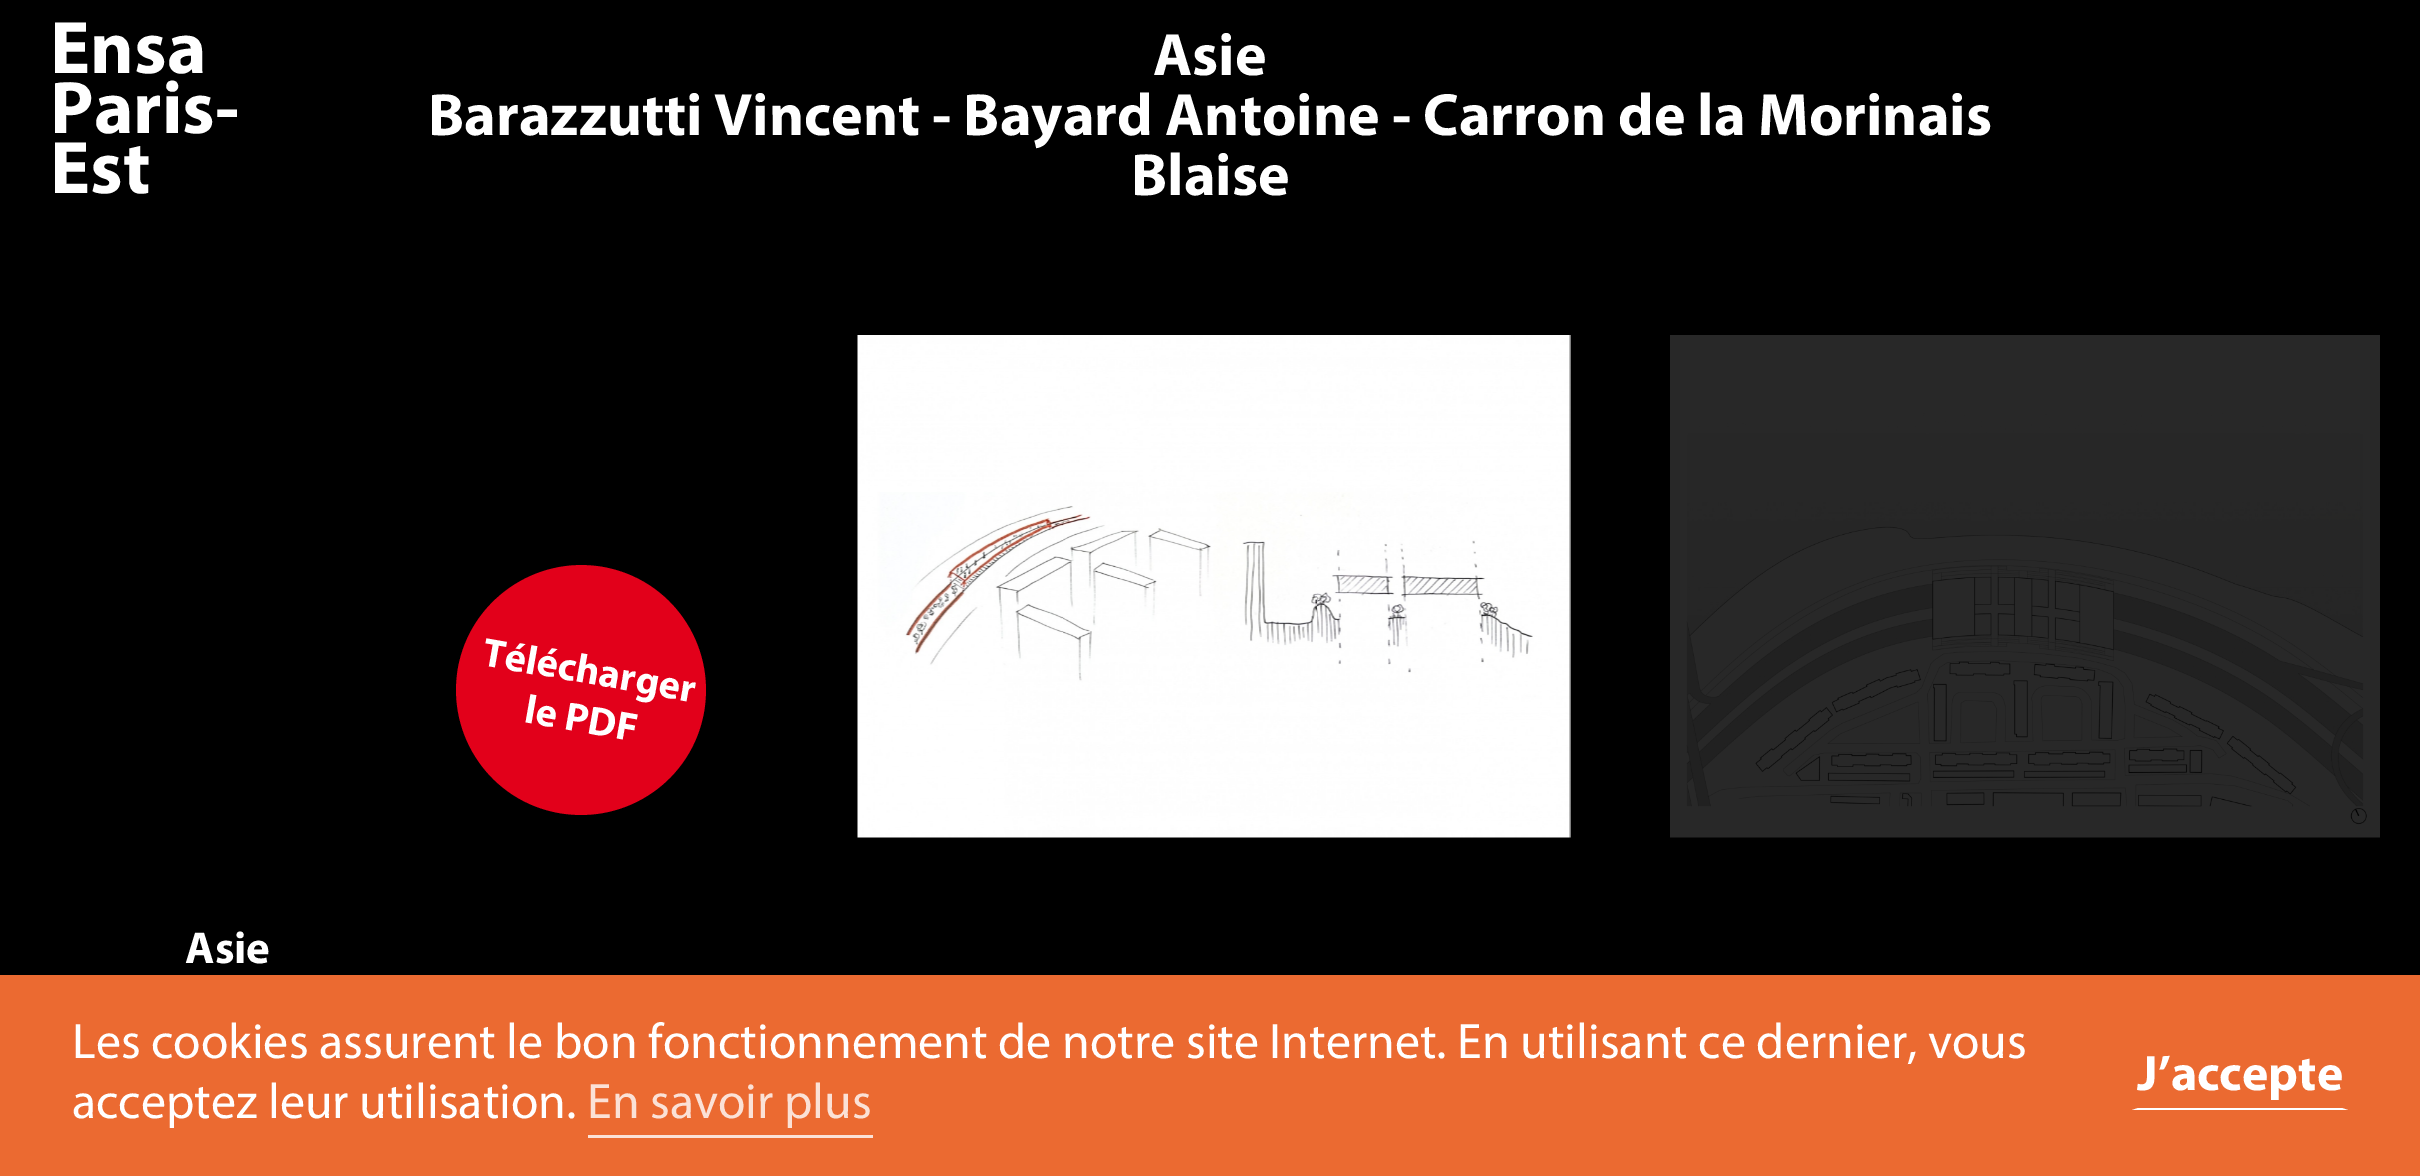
%!PS-Adobe-3.0
%%BoundingBox: 0 0 2420 1176
%%LanguageLevel: 3
%%Pages: 1
%%EndComments
%%BeginProlog
/setink { dup -16 bitshift 255 div exch dup -8 bitshift 255 and 255 div exch 255 and 255 div setrgbcolor } def
/usefont { [ exch dup neg 0 0 3 -1 roll 0 0 ] selectfont } def
/drawimage { 5 dict begin { /h /w /y /x /name } { exch def } forall
  gsave x y translate w h scale
  w h 8 [w 0 0 h 0 0] name (r) file false 3 colorimage grestore end } def
%%EndProlog
%%BeginSetup
<< /PageSize [2420 1176] >> setpagedevice
%%EndSetup
%%Page: 1 1
0 1176 translate 1 -1 scale
4 setmiterlimit
16#000000 setink
0 0 2420 1176 rectfill
/Myriad-Bold 75 usefont
16#FFFFFF setink
[
    [(Ensa) 50 73]
    [(Paris-) 50 133]
    [(Est) 50 193]
] { aload pop moveto show } forall
/Myriad-Bold 60 usefont
[
    [(Asie) 1153 75]
    [(Barazzutti Vincent - Bayard Antoine - Carron de la Morinais) 428 135]
    [(Blaise) 1131 195]
] { aload pop moveto show } forall
16#E2001A setink
603 567 moveto 671 579 716 644 704 712 curveto 692 780 627 825 559 813 curveto 491 801 446 736 458 668 curveto 470 601 535 555 603 567 curveto closepath fill
/Myriad-Bold 40.5 usefont
16#FFFFFF setink
gsave 481 665 translate 10 rotate 0 0 moveto (Télécharger) show grestore
gsave 523 722 translate 10 rotate 0 0 moveto (le PDF) show grestore
(img1.raw) 857 335 714 503 drawimage
(img2.raw) 1670 335 710 503 drawimage
/Myriad-Bold 45 usefont
185 963 moveto (Asie) show
16#EB6A31 setink
0 975 2420 201 rectfill
/Myriad-Regular 50 usefont
16#FFFFFF setink
72 1058 moveto (Les cookies assurent le bon fonctionnement de notre site Internet. En utilisant ce dernier, vous) show
72 1118 moveto (acceptez leur utilisation.) show
16#FBE1D6 setink
588 1135 285 3 rectfill
587 1118 moveto (En savoir plus) show
16#FFFFFF setink
2348 1110 moveto 2132 1110 lineto 2138 1108 lineto 2342 1108 lineto closepath fill
/Myriad-Bold 50 usefont
2137 1090 moveto (J’accepte) show
showpage
%%EOF
